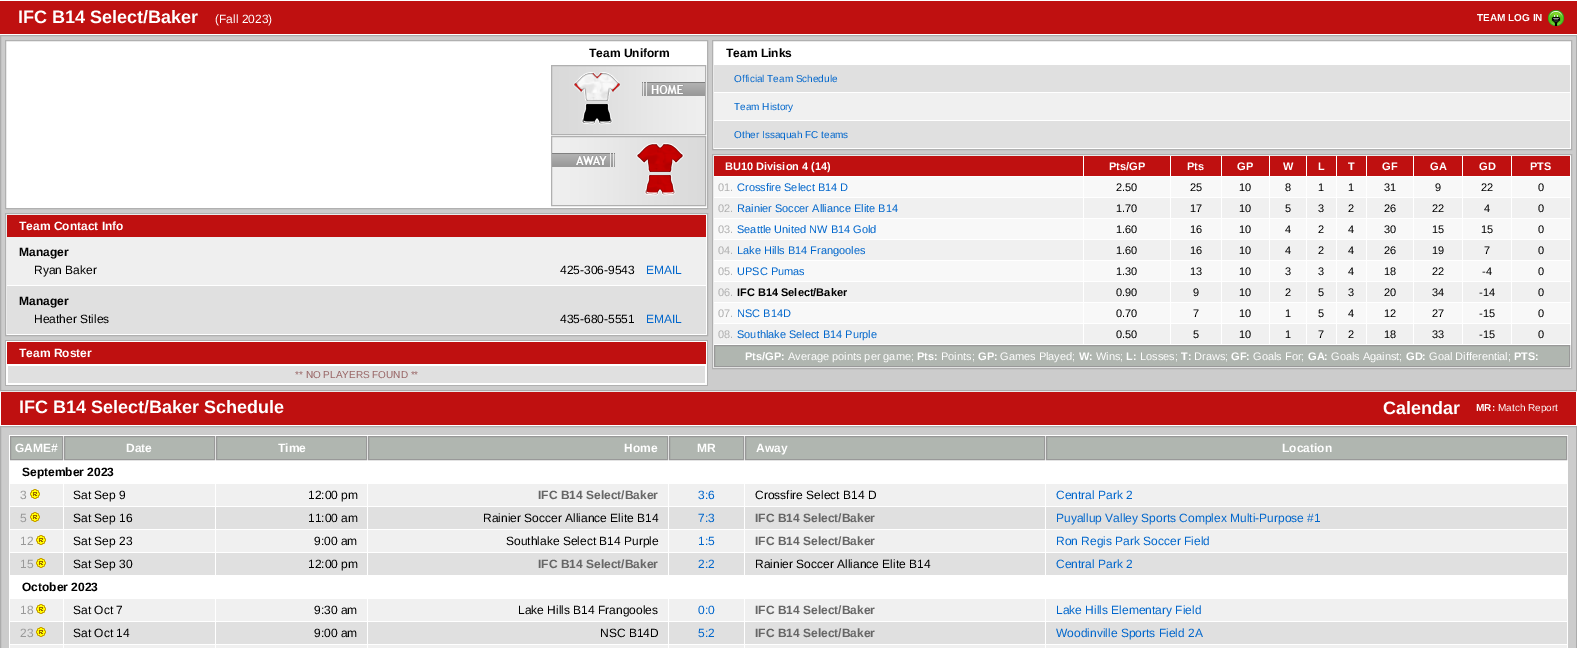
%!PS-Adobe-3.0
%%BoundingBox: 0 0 1577 648
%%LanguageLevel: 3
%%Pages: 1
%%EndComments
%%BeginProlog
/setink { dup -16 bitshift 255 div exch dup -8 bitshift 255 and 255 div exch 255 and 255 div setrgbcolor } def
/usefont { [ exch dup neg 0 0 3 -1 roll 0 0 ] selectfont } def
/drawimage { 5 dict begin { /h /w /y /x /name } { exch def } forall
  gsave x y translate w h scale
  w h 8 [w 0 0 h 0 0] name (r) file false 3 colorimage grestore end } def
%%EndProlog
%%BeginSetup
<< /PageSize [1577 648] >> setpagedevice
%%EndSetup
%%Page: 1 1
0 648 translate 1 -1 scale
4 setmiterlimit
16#FFFFFF setink
0 0 1577 648 rectfill
16#BF1010 setink
0 1 1577 33 rectfill
/LiberationSans-Bold 18 usefont
16#FFFFFF setink
18 23 moveto (IFC B14 Select/Baker) show
/LiberationSans-Regular 12 usefont
215 23 moveto (\(Fall 2023\)) show
/LiberationSans-Bold 10 usefont
1477 21 moveto (TEAM LOG IN) show
(img1.raw) 1548 10 16 16 drawimage
16#CCCCCC setink
0.5 35.5 moveto 1576.5 35.5 lineto 1576.5 390.5 lineto 0.5 390.5 lineto closepath gsave fill grestore
16#ACACAC setink
stroke
16#FFFFFF setink
5.5 40.5 moveto 707.5 40.5 lineto 707.5 208.5 lineto 5.5 208.5 lineto closepath gsave fill grestore
16#B0B0B0 setink
stroke
/LiberationSans-Bold 12 usefont
16#000000 setink
589 57 moveto (Team Uniform) show
(img2.raw) 552 66 153 68 drawimage
16#B0B0B0 setink
551.5 65.5 154 69 rectstroke
(img3.raw) 573 72 48 29 drawimage
(img4.raw) 581 104 32 21 drawimage
(img5.raw) 642 82 63 14 drawimage
(img6.raw) 552 137 153 68 drawimage
551.5 136.5 154 69 rectstroke
(img7.raw) 552 153 63 14 drawimage
(img8.raw) 636 143 48 29 drawimage
(img9.raw) 644 175 32 21 drawimage
16#FFFFFF setink
5.5 213.5 moveto 707.5 213.5 lineto 707.5 335.5 lineto 5.5 335.5 lineto closepath gsave fill grestore
16#B0B0B0 setink
stroke
16#BF1010 setink
7 215 699 22 rectfill
16#FFFFFF setink
19 230 moveto (Team Contact Info) show
16#EFEFEF setink
7 237 699 48 rectfill
16#000000 setink
19 256 moveto (Manager) show
/LiberationSans-Regular 12 usefont
34 274 moveto (Ryan Baker) show
560 274 moveto (425-306-9543) show
16#0066CC setink
646 274 moveto (EMAIL) show
16#E0E0E0 setink
7 286 699 48 rectfill
/LiberationSans-Bold 12 usefont
16#000000 setink
19 305 moveto (Manager) show
/LiberationSans-Regular 12 usefont
34 323 moveto (Heather Stiles) show
560 323 moveto (435-680-5551) show
16#0066CC setink
646 323 moveto (EMAIL) show
[
    [5 340 703 46 16#B0B0B0]
    [6 341 701 44 16#FFFFFF]
    [7 342 699 22 16#BF1010]
] { aload pop setink rectfill } forall
/LiberationSans-Bold 12 usefont
16#FFFFFF setink
19 357 moveto (Team Roster) show
16#E0E0E0 setink
8 366 697 17 rectfill
/LiberationSans-Regular 10 usefont
16#996666 setink
295 378 moveto (** NO PLAYERS FOUND **) show
16#FFFFFF setink
712.5 40.5 moveto 1571.5 40.5 lineto 1571.5 149.5 lineto 712.5 149.5 lineto closepath gsave fill grestore
16#B0B0B0 setink
stroke
/LiberationSans-Bold 12 usefont
16#000000 setink
726 57 moveto (Team Links) show
16#E0E0E0 setink
714 65 856 27 rectfill
/LiberationSans-Regular 10 usefont
16#0066CC setink
734 82 moveto (Official Team Schedule) show
16#F0F0F0 setink
714 93 856 27 rectfill
16#0066CC setink
734 110 moveto (Team History) show
16#E0E0E0 setink
714 121 856 27 rectfill
16#0066CC setink
734 138 moveto (Other Issaquah FC teams) show
16#FFFFFF setink
712.5 154.5 moveto 1571.5 154.5 lineto 1571.5 368.5 lineto 712.5 368.5 lineto closepath gsave fill grestore
16#B0B0B0 setink
stroke
16#BF1010 setink
714 156 369 20 rectfill
/LiberationSans-Bold 11 usefont
16#FFFFFF setink
725 170 moveto (BU10 Division 4 \(14\)) show
16#BF1010 setink
1084 156 86 20 rectfill
16#FFFFFF setink
1109 170 moveto (Pts/GP) show
16#BF1010 setink
1171 156 50 20 rectfill
16#FFFFFF setink
1187 170 moveto (Pts) show
16#BF1010 setink
1222 156 47 20 rectfill
16#FFFFFF setink
1237 170 moveto (GP) show
16#BF1010 setink
1270 156 36 20 rectfill
16#FFFFFF setink
1283 170 moveto (W) show
16#BF1010 setink
1307 156 29 20 rectfill
16#FFFFFF setink
1318 170 moveto (L) show
16#BF1010 setink
1337 156 29 20 rectfill
16#FFFFFF setink
1348 170 moveto (T) show
16#BF1010 setink
1367 156 46 20 rectfill
16#FFFFFF setink
1382 170 moveto (GF) show
16#BF1010 setink
1414 156 48 20 rectfill
16#FFFFFF setink
1430 170 moveto (GA) show
16#BF1010 setink
1463 156 48 20 rectfill
16#FFFFFF setink
1479 170 moveto (GD) show
16#BF1010 setink
1512 156 58 20 rectfill
16#FFFFFF setink
1530 170 moveto (PTS) show
16#F8F8F8 setink
714 177 369 20 rectfill
/LiberationSans-Regular 11 usefont
16#B0B0B0 setink
718 191 moveto (01.) show
16#0066CC setink
737 191 moveto (Crossfire Select B14 D) show
16#F8F8F8 setink
1084 177 86 20 rectfill
16#000000 setink
1116 191 moveto (2.50) show
16#F8F8F8 setink
1171 177 50 20 rectfill
16#000000 setink
1190 191 moveto (25) show
16#F8F8F8 setink
1222 177 47 20 rectfill
16#000000 setink
1239 191 moveto (10) show
16#F8F8F8 setink
1270 177 36 20 rectfill
16#000000 setink
1285 191 moveto (8) show
16#F8F8F8 setink
1307 177 29 20 rectfill
16#000000 setink
1318 191 moveto (1) show
16#F8F8F8 setink
1337 177 29 20 rectfill
16#000000 setink
1348 191 moveto (1) show
16#F8F8F8 setink
1367 177 46 20 rectfill
16#000000 setink
1384 191 moveto (31) show
16#F8F8F8 setink
1414 177 48 20 rectfill
16#000000 setink
1435 191 moveto (9) show
16#F8F8F8 setink
1463 177 48 20 rectfill
16#000000 setink
1481 191 moveto (22) show
16#F8F8F8 setink
1512 177 58 20 rectfill
16#000000 setink
1538 191 moveto (0) show
16#F0F0F0 setink
714 198 369 20 rectfill
16#B0B0B0 setink
718 212 moveto (02.) show
16#0066CC setink
737 212 moveto (Rainier Soccer Alliance Elite B14) show
16#F0F0F0 setink
1084 198 86 20 rectfill
16#000000 setink
1116 212 moveto (1.70) show
16#F0F0F0 setink
1171 198 50 20 rectfill
16#000000 setink
1190 212 moveto (17) show
16#F0F0F0 setink
1222 198 47 20 rectfill
16#000000 setink
1239 212 moveto (10) show
16#F0F0F0 setink
1270 198 36 20 rectfill
16#000000 setink
1285 212 moveto (5) show
16#F0F0F0 setink
1307 198 29 20 rectfill
16#000000 setink
1318 212 moveto (3) show
16#F0F0F0 setink
1337 198 29 20 rectfill
16#000000 setink
1348 212 moveto (2) show
16#F0F0F0 setink
1367 198 46 20 rectfill
16#000000 setink
1384 212 moveto (26) show
16#F0F0F0 setink
1414 198 48 20 rectfill
16#000000 setink
1432 212 moveto (22) show
16#F0F0F0 setink
1463 198 48 20 rectfill
16#000000 setink
1484 212 moveto (4) show
16#F0F0F0 setink
1512 198 58 20 rectfill
16#000000 setink
1538 212 moveto (0) show
16#F8F8F8 setink
714 219 369 20 rectfill
16#B0B0B0 setink
718 233 moveto (03.) show
16#0066CC setink
737 233 moveto (Seattle United NW B14 Gold) show
16#F8F8F8 setink
1084 219 86 20 rectfill
16#000000 setink
1116 233 moveto (1.60) show
16#F8F8F8 setink
1171 219 50 20 rectfill
16#000000 setink
1190 233 moveto (16) show
16#F8F8F8 setink
1222 219 47 20 rectfill
16#000000 setink
1239 233 moveto (10) show
16#F8F8F8 setink
1270 219 36 20 rectfill
16#000000 setink
1285 233 moveto (4) show
16#F8F8F8 setink
1307 219 29 20 rectfill
16#000000 setink
1318 233 moveto (2) show
16#F8F8F8 setink
1337 219 29 20 rectfill
16#000000 setink
1348 233 moveto (4) show
16#F8F8F8 setink
1367 219 46 20 rectfill
16#000000 setink
1384 233 moveto (30) show
16#F8F8F8 setink
1414 219 48 20 rectfill
16#000000 setink
1432 233 moveto (15) show
16#F8F8F8 setink
1463 219 48 20 rectfill
16#000000 setink
1481 233 moveto (15) show
16#F8F8F8 setink
1512 219 58 20 rectfill
16#000000 setink
1538 233 moveto (0) show
16#F0F0F0 setink
714 240 369 20 rectfill
16#B0B0B0 setink
718 254 moveto (04.) show
16#0066CC setink
737 254 moveto (Lake Hills B14 Frangooles) show
16#F0F0F0 setink
1084 240 86 20 rectfill
16#000000 setink
1116 254 moveto (1.60) show
16#F0F0F0 setink
1171 240 50 20 rectfill
16#000000 setink
1190 254 moveto (16) show
16#F0F0F0 setink
1222 240 47 20 rectfill
16#000000 setink
1239 254 moveto (10) show
16#F0F0F0 setink
1270 240 36 20 rectfill
16#000000 setink
1285 254 moveto (4) show
16#F0F0F0 setink
1307 240 29 20 rectfill
16#000000 setink
1318 254 moveto (2) show
16#F0F0F0 setink
1337 240 29 20 rectfill
16#000000 setink
1348 254 moveto (4) show
16#F0F0F0 setink
1367 240 46 20 rectfill
16#000000 setink
1384 254 moveto (26) show
16#F0F0F0 setink
1414 240 48 20 rectfill
16#000000 setink
1432 254 moveto (19) show
16#F0F0F0 setink
1463 240 48 20 rectfill
16#000000 setink
1484 254 moveto (7) show
16#F0F0F0 setink
1512 240 58 20 rectfill
16#000000 setink
1538 254 moveto (0) show
16#F8F8F8 setink
714 261 369 20 rectfill
16#B0B0B0 setink
718 275 moveto (05.) show
16#0066CC setink
737 275 moveto (UPSC Pumas) show
16#F8F8F8 setink
1084 261 86 20 rectfill
16#000000 setink
1116 275 moveto (1.30) show
16#F8F8F8 setink
1171 261 50 20 rectfill
16#000000 setink
1190 275 moveto (13) show
16#F8F8F8 setink
1222 261 47 20 rectfill
16#000000 setink
1239 275 moveto (10) show
16#F8F8F8 setink
1270 261 36 20 rectfill
16#000000 setink
1285 275 moveto (3) show
16#F8F8F8 setink
1307 261 29 20 rectfill
16#000000 setink
1318 275 moveto (3) show
16#F8F8F8 setink
1337 261 29 20 rectfill
16#000000 setink
1348 275 moveto (4) show
16#F8F8F8 setink
1367 261 46 20 rectfill
16#000000 setink
1384 275 moveto (18) show
16#F8F8F8 setink
1414 261 48 20 rectfill
16#000000 setink
1432 275 moveto (22) show
16#F8F8F8 setink
1463 261 48 20 rectfill
16#000000 setink
1482 275 moveto (-4) show
16#F8F8F8 setink
1512 261 58 20 rectfill
16#000000 setink
1538 275 moveto (0) show
16#F0F0F0 setink
714 282 369 20 rectfill
16#B0B0B0 setink
718 296 moveto (06.) show
/LiberationSans-Bold 11 usefont
16#000000 setink
737 296 moveto (IFC B14 Select/Baker) show
16#F0F0F0 setink
1084 282 86 20 rectfill
/LiberationSans-Regular 11 usefont
16#000000 setink
1116 296 moveto (0.90) show
16#F0F0F0 setink
1171 282 50 20 rectfill
16#000000 setink
1193 296 moveto (9) show
16#F0F0F0 setink
1222 282 47 20 rectfill
16#000000 setink
1239 296 moveto (10) show
16#F0F0F0 setink
1270 282 36 20 rectfill
16#000000 setink
1285 296 moveto (2) show
16#F0F0F0 setink
1307 282 29 20 rectfill
16#000000 setink
1318 296 moveto (5) show
16#F0F0F0 setink
1337 282 29 20 rectfill
16#000000 setink
1348 296 moveto (3) show
16#F0F0F0 setink
1367 282 46 20 rectfill
16#000000 setink
1384 296 moveto (20) show
16#F0F0F0 setink
1414 282 48 20 rectfill
16#000000 setink
1432 296 moveto (34) show
16#F0F0F0 setink
1463 282 48 20 rectfill
16#000000 setink
1479 296 moveto (-14) show
16#F0F0F0 setink
1512 282 58 20 rectfill
16#000000 setink
1538 296 moveto (0) show
16#F8F8F8 setink
714 303 369 20 rectfill
16#B0B0B0 setink
718 317 moveto (07.) show
16#0066CC setink
737 317 moveto (NSC B14D) show
16#F8F8F8 setink
1084 303 86 20 rectfill
16#000000 setink
1116 317 moveto (0.70) show
16#F8F8F8 setink
1171 303 50 20 rectfill
16#000000 setink
1193 317 moveto (7) show
16#F8F8F8 setink
1222 303 47 20 rectfill
16#000000 setink
1239 317 moveto (10) show
16#F8F8F8 setink
1270 303 36 20 rectfill
16#000000 setink
1285 317 moveto (1) show
16#F8F8F8 setink
1307 303 29 20 rectfill
16#000000 setink
1318 317 moveto (5) show
16#F8F8F8 setink
1337 303 29 20 rectfill
16#000000 setink
1348 317 moveto (4) show
16#F8F8F8 setink
1367 303 46 20 rectfill
16#000000 setink
1384 317 moveto (12) show
16#F8F8F8 setink
1414 303 48 20 rectfill
16#000000 setink
1432 317 moveto (27) show
16#F8F8F8 setink
1463 303 48 20 rectfill
16#000000 setink
1479 317 moveto (-15) show
16#F8F8F8 setink
1512 303 58 20 rectfill
16#000000 setink
1538 317 moveto (0) show
16#F0F0F0 setink
714 324 369 20 rectfill
16#B0B0B0 setink
718 338 moveto (08.) show
16#0066CC setink
737 338 moveto (Southlake Select B14 Purple) show
16#F0F0F0 setink
1084 324 86 20 rectfill
16#000000 setink
1116 338 moveto (0.50) show
16#F0F0F0 setink
1171 324 50 20 rectfill
16#000000 setink
1193 338 moveto (5) show
16#F0F0F0 setink
1222 324 47 20 rectfill
16#000000 setink
1239 338 moveto (10) show
16#F0F0F0 setink
1270 324 36 20 rectfill
16#000000 setink
1285 338 moveto (1) show
16#F0F0F0 setink
1307 324 29 20 rectfill
16#000000 setink
1318 338 moveto (7) show
16#F0F0F0 setink
1337 324 29 20 rectfill
16#000000 setink
1348 338 moveto (2) show
16#F0F0F0 setink
1367 324 46 20 rectfill
16#000000 setink
1384 338 moveto (18) show
16#F0F0F0 setink
1414 324 48 20 rectfill
16#000000 setink
1432 338 moveto (33) show
16#F0F0F0 setink
1463 324 48 20 rectfill
16#000000 setink
1479 338 moveto (-15) show
16#F0F0F0 setink
1512 324 58 20 rectfill
16#000000 setink
1538 338 moveto (0) show
16#B0B6B0 setink
714.5 345.5 moveto 1569.5 345.5 lineto 1569.5 366.5 lineto 714.5 366.5 lineto closepath gsave fill grestore
16#999999 setink
stroke
/LiberationSans-Bold 11 usefont
16#FFFFFF setink
745 360 moveto (Pts/GP:) show
/LiberationSans-Regular 11 usefont
788 360 moveto (Average points per game;) show
/LiberationSans-Bold 11 usefont
917 360 moveto (Pts:) show
/LiberationSans-Regular 11 usefont
941 360 moveto (Points;) show
/LiberationSans-Bold 11 usefont
978 360 moveto (GP:) show
/LiberationSans-Regular 11 usefont
1000 360 moveto (Games Played;) show
/LiberationSans-Bold 11 usefont
1079 360 moveto (W:) show
/LiberationSans-Regular 11 usefont
1096 360 moveto (Wins;) show
/LiberationSans-Bold 11 usefont
1126 360 moveto (L:) show
/LiberationSans-Regular 11 usefont
1140 360 moveto (Losses;) show
/LiberationSans-Bold 11 usefont
1181 360 moveto (T:) show
/LiberationSans-Regular 11 usefont
1194 360 moveto (Draws;) show
/LiberationSans-Bold 11 usefont
1231 360 moveto (GF:) show
/LiberationSans-Regular 11 usefont
1253 360 moveto (Goals For;) show
/LiberationSans-Bold 11 usefont
1308 360 moveto (GA:) show
/LiberationSans-Regular 11 usefont
1331 360 moveto (Goals Against;) show
/LiberationSans-Bold 11 usefont
1406 360 moveto (GD:) show
/LiberationSans-Regular 11 usefont
1429 360 moveto (Goal Differential;) show
/LiberationSans-Bold 11 usefont
1514 360 moveto (PTS:) show
16#BF1010 setink
1 392 1575 33 rectfill
/LiberationSans-Bold 18 usefont
16#FFFFFF setink
19 413 moveto (IFC B14 Select/Baker Schedule) show
1383 414 moveto (Calendar) show
/LiberationSans-Bold 10 usefont
1476 411 moveto (MR:) show
/LiberationSans-Regular 10 usefont
1498 411 moveto (Match Report) show
16#CCCCCC setink
0.5 426.5 moveto 1576.5 426.5 lineto 1576.5 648.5 lineto 0.5 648.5 lineto closepath gsave fill grestore
16#ACACAC setink
stroke
16#FFFFFF setink
9 435 1559 213 rectfill
16#B0B6B0 setink
10.5 436.5 moveto 62.5 436.5 lineto 62.5 459.5 lineto 10.5 459.5 lineto closepath gsave fill grestore
16#999999 setink
stroke
/LiberationSans-Bold 12 usefont
16#FFFFFF setink
15 452 moveto (GAME#) show
16#B0B6B0 setink
64.5 436.5 moveto 214.5 436.5 lineto 214.5 459.5 lineto 64.5 459.5 lineto closepath gsave fill grestore
16#999999 setink
stroke
16#FFFFFF setink
126 452 moveto (Date) show
16#B0B6B0 setink
216.5 436.5 moveto 366.5 436.5 lineto 366.5 459.5 lineto 216.5 459.5 lineto closepath gsave fill grestore
16#999999 setink
stroke
16#FFFFFF setink
278 452 moveto (Time) show
16#B0B6B0 setink
368.5 436.5 moveto 667.5 436.5 lineto 667.5 459.5 lineto 368.5 459.5 lineto closepath gsave fill grestore
16#999999 setink
stroke
16#FFFFFF setink
624 452 moveto (Home) show
16#B0B6B0 setink
669.5 436.5 moveto 743.5 436.5 lineto 743.5 459.5 lineto 669.5 459.5 lineto closepath gsave fill grestore
16#999999 setink
stroke
16#FFFFFF setink
697 452 moveto (MR) show
16#B0B6B0 setink
745.5 436.5 moveto 1044.5 436.5 lineto 1044.5 459.5 lineto 745.5 459.5 lineto closepath gsave fill grestore
16#999999 setink
stroke
16#FFFFFF setink
756 452 moveto (Away) show
16#B0B6B0 setink
1046.5 436.5 moveto 1566.5 436.5 lineto 1566.5 459.5 lineto 1046.5 459.5 lineto closepath gsave fill grestore
16#999999 setink
stroke
16#FFFFFF setink
1282 452 moveto (Location) show
16#000000 setink
22 476 moveto (September 2023) show
16#F0F0F0 setink
10 484 53 22 rectfill
/LiberationSans-Regular 12 usefont
16#999999 setink
20 499 moveto (3) show
(img10.raw) 30 489 10 10 drawimage
16#F0F0F0 setink
64 484 151 22 rectfill
16#000000 setink
73 499 moveto (Sat Sep 9) show
16#F0F0F0 setink
216 484 151 22 rectfill
16#000000 setink
308 499 moveto (12:00 pm) show
16#F0F0F0 setink
368 484 300 22 rectfill
/LiberationSans-Bold 12 usefont
16#666666 setink
538 499 moveto (IFC B14 Select/Baker) show
16#F0F0F0 setink
669 484 75 22 rectfill
/LiberationSans-Regular 12 usefont
16#0066CC setink
698 499 moveto (3:6) show
16#F0F0F0 setink
745 484 300 22 rectfill
16#000000 setink
755 499 moveto (Crossfire Select B14 D) show
16#F0F0F0 setink
1046 484 521 22 rectfill
16#0066CC setink
1056 499 moveto (Central Park 2) show
16#E0E0E0 setink
10 507 53 22 rectfill
16#999999 setink
20 522 moveto (5) show
(img11.raw) 30 512 10 10 drawimage
16#E0E0E0 setink
64 507 151 22 rectfill
16#000000 setink
73 522 moveto (Sat Sep 16) show
16#E0E0E0 setink
216 507 151 22 rectfill
16#000000 setink
308 522 moveto (11:00 am) show
16#E0E0E0 setink
368 507 300 22 rectfill
16#000000 setink
483 522 moveto (Rainier Soccer Alliance Elite B14) show
16#E0E0E0 setink
669 507 75 22 rectfill
16#0066CC setink
698 522 moveto (7:3) show
16#E0E0E0 setink
745 507 300 22 rectfill
/LiberationSans-Bold 12 usefont
16#666666 setink
755 522 moveto (IFC B14 Select/Baker) show
16#E0E0E0 setink
1046 507 521 22 rectfill
/LiberationSans-Regular 12 usefont
16#0066CC setink
1056 522 moveto (Puyallup Valley Sports Complex Multi-Purpose #1) show
16#F0F0F0 setink
10 530 53 22 rectfill
16#999999 setink
20 545 moveto (12) show
(img10.raw) 36 535 10 10 drawimage
16#F0F0F0 setink
64 530 151 22 rectfill
16#000000 setink
73 545 moveto (Sat Sep 23) show
16#F0F0F0 setink
216 530 151 22 rectfill
16#000000 setink
314 545 moveto (9:00 am) show
16#F0F0F0 setink
368 530 300 22 rectfill
16#000000 setink
506 545 moveto (Southlake Select B14 Purple) show
16#F0F0F0 setink
669 530 75 22 rectfill
16#0066CC setink
698 545 moveto (1:5) show
16#F0F0F0 setink
745 530 300 22 rectfill
/LiberationSans-Bold 12 usefont
16#666666 setink
755 545 moveto (IFC B14 Select/Baker) show
16#F0F0F0 setink
1046 530 521 22 rectfill
/LiberationSans-Regular 12 usefont
16#0066CC setink
1056 545 moveto (Ron Regis Park Soccer Field) show
16#E0E0E0 setink
10 553 53 22 rectfill
16#999999 setink
20 568 moveto (15) show
(img11.raw) 36 558 10 10 drawimage
16#E0E0E0 setink
64 553 151 22 rectfill
16#000000 setink
73 568 moveto (Sat Sep 30) show
16#E0E0E0 setink
216 553 151 22 rectfill
16#000000 setink
308 568 moveto (12:00 pm) show
16#E0E0E0 setink
368 553 300 22 rectfill
/LiberationSans-Bold 12 usefont
16#666666 setink
538 568 moveto (IFC B14 Select/Baker) show
16#E0E0E0 setink
669 553 75 22 rectfill
/LiberationSans-Regular 12 usefont
16#0066CC setink
698 568 moveto (2:2) show
16#E0E0E0 setink
745 553 300 22 rectfill
16#000000 setink
755 568 moveto (Rainier Soccer Alliance Elite B14) show
16#E0E0E0 setink
1046 553 521 22 rectfill
16#0066CC setink
1056 568 moveto (Central Park 2) show
/LiberationSans-Bold 12 usefont
16#000000 setink
22 591 moveto (October 2023) show
16#F0F0F0 setink
10 599 53 22 rectfill
/LiberationSans-Regular 12 usefont
16#999999 setink
20 614 moveto (18) show
(img10.raw) 36 604 10 10 drawimage
16#F0F0F0 setink
64 599 151 22 rectfill
16#000000 setink
73 614 moveto (Sat Oct 7) show
16#F0F0F0 setink
216 599 151 22 rectfill
16#000000 setink
314 614 moveto (9:30 am) show
16#F0F0F0 setink
368 599 300 22 rectfill
16#000000 setink
518 614 moveto (Lake Hills B14 Frangooles) show
16#F0F0F0 setink
669 599 75 22 rectfill
16#0066CC setink
698 614 moveto (0:0) show
16#F0F0F0 setink
745 599 300 22 rectfill
/LiberationSans-Bold 12 usefont
16#666666 setink
755 614 moveto (IFC B14 Select/Baker) show
16#F0F0F0 setink
1046 599 521 22 rectfill
/LiberationSans-Regular 12 usefont
16#0066CC setink
1056 614 moveto (Lake Hills Elementary Field) show
16#E0E0E0 setink
10 622 53 22 rectfill
16#999999 setink
20 637 moveto (23) show
(img11.raw) 36 627 10 10 drawimage
16#E0E0E0 setink
64 622 151 22 rectfill
16#000000 setink
73 637 moveto (Sat Oct 14) show
16#E0E0E0 setink
216 622 151 22 rectfill
16#000000 setink
314 637 moveto (9:00 am) show
16#E0E0E0 setink
368 622 300 22 rectfill
16#000000 setink
600 637 moveto (NSC B14D) show
16#E0E0E0 setink
669 622 75 22 rectfill
16#0066CC setink
698 637 moveto (5:2) show
16#E0E0E0 setink
745 622 300 22 rectfill
/LiberationSans-Bold 12 usefont
16#666666 setink
755 637 moveto (IFC B14 Select/Baker) show
16#E0E0E0 setink
1046 622 521 22 rectfill
/LiberationSans-Regular 12 usefont
16#0066CC setink
1056 637 moveto (Woodinville Sports Field 2A) show
[
    [10 645 53 3 16#F0F0F0]
    [64 645 151 3 16#F0F0F0]
    [216 645 151 3 16#F0F0F0]
    [368 645 300 3 16#F0F0F0]
    [669 645 75 3 16#F0F0F0]
    [745 645 300 3 16#F0F0F0]
    [1046 645 521 3 16#F0F0F0]
] { aload pop setink rectfill } forall
showpage
%%EOF
